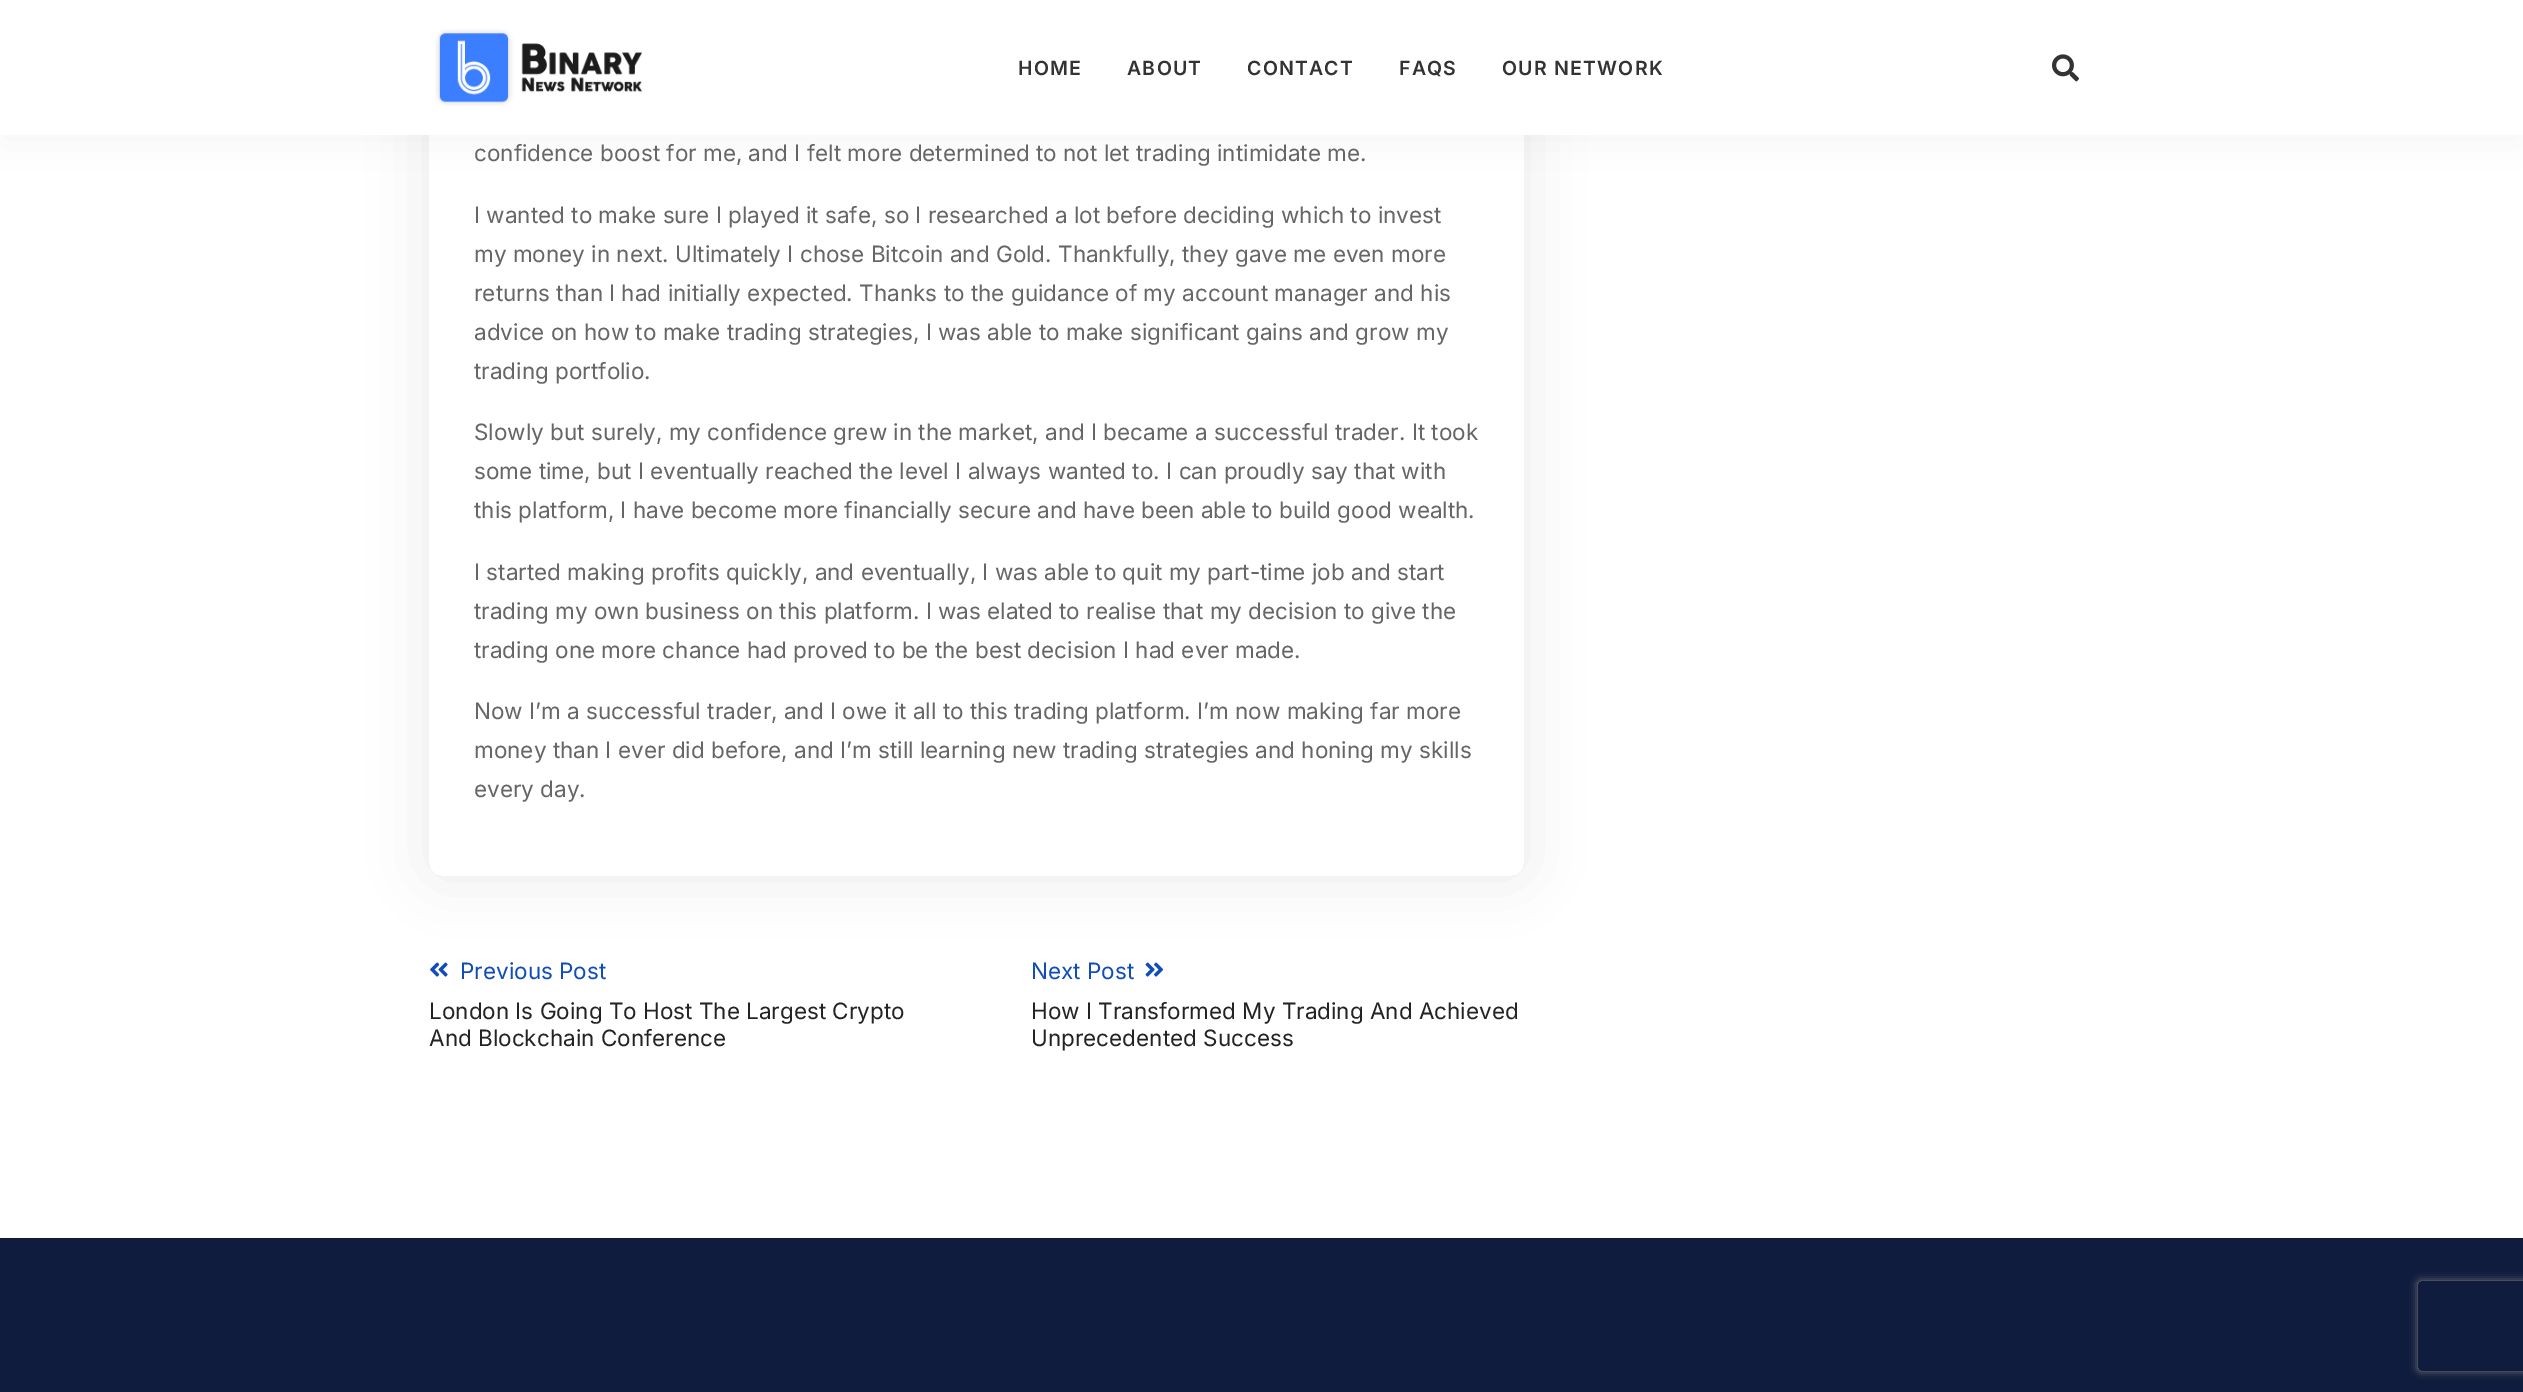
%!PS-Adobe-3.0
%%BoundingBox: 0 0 2523 1392
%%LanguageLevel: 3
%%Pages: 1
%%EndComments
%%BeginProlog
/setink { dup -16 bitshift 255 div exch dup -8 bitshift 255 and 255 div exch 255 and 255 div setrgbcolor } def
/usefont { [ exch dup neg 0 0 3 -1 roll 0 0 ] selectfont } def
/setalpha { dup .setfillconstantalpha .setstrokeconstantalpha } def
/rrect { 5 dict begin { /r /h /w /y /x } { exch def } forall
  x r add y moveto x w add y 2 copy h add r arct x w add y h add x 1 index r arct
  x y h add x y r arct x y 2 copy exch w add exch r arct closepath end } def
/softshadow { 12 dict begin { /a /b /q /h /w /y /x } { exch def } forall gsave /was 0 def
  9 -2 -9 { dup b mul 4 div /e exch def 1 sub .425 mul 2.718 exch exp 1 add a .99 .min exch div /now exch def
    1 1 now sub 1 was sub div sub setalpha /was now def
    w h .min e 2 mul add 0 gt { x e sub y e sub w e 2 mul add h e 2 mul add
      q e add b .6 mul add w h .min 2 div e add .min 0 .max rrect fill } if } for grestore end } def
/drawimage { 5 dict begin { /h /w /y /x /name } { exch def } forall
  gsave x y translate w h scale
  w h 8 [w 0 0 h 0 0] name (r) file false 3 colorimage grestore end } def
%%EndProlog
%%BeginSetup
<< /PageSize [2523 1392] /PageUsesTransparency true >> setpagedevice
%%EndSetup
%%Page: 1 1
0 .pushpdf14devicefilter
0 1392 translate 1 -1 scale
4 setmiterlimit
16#FFFFFF setink
0 0 2523 1392 rectfill
16#000000 setink
0 12 2523 135 0 19 0.04 softshadow
gsave
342 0 moveto 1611 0 lineto 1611 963 lineto 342 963 lineto closepath 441 -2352 moveto 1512 -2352 lineto 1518.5 -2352 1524 -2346.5 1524 -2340 curveto 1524 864 lineto 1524 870.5 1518.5 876 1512 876 curveto 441 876 lineto 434.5 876 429 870.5 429 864 curveto 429 -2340 lineto 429 -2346.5 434.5 -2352 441 -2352 curveto closepath eoclip newpath
429 -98 1095 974 12 28.5 0.08 softshadow
grestore
16#FFFFFF setink
0 0 2523 135 rectfill
(img1.raw) 435 29 207 77 drawimage
/Inter-SemiBold 19.5 usefont
16#333333 setink
1018 75 moveto 1.25 0 (HOME) ashow
1127 75 moveto 1.25 0 (ABOUT) ashow
1247 75 moveto 1.25 0 (CONTACT) ashow
1399 75 moveto 1.25 0 (FAQS) ashow
1502 75 moveto 1.25 0 (OUR NETWORK) ashow
(img2.raw) 2052 54 27 28 drawimage
/Inter-Regular 22.5 usefont
16#666666 setink
[
    [(confidence boost for me, and I felt more determined to not let trading intimidate me.) 474 161]
    [(I wanted to make sure I played it safe, so I researched a lot before deciding which to invest) 474 223]
    [(my money in next. Ultimately I chose Bitcoin and Gold. Thankfully, they gave me even more) 474 262]
    [(returns than I had initially expected. Thanks to the guidance of my account manager and his) 474 301]
    [(advice on how to make trading strategies, I was able to make significant gains and grow my) 474 340]
    [(trading portfolio.) 474 379]
    [(Slowly but surely, my confidence grew in the market, and I became a successful trader. It took) 474 440]
    [(some time, but I eventually reached the level I always wanted to. I can proudly say that with) 474 479]
    [(this platform, I have become more financially secure and have been able to build good wealth.) 474 518]
    [(I started making profits quickly, and eventually, I was able to quit my part-time job and start) 474 580]
    [(trading my own business on this platform. I was elated to realise that my decision to give the) 474 619]
    [(trading one more chance had proved to be the best decision I had ever made.) 474 658]
    [(Now I’m a successful trader, and I owe it all to this trading platform. I’m now making far more) 474 719]
    [(money than I ever did before, and I’m still learning new trading strategies and honing my skills) 474 758]
    [(every day.) 474 797]
] { aload pop moveto show } forall
(img3.raw) 430 962 18 15 drawimage
16#104CBA setink
460 979 moveto (Previous Post) show
16#232323 setink
429 1019 moveto (London Is Going To Host The Largest Crypto) show
429 1046 moveto (And Blockchain Conference) show
16#104CBA setink
1031 979 moveto (Next Post) show
(img4.raw) 1145 962 19 15 drawimage
16#232323 setink
1031 1019 moveto (How I Transformed My Trading And Achieved) show
1031 1046 moveto (Unprecedented Success) show
16#101C3D setink
0 1238 2523 154 rectfill
gsave
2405 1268 moveto 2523 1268 lineto 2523 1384 lineto 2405 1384 lineto closepath 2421 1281 moveto 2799 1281 lineto 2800.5 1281 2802 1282.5 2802 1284 curveto 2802 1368 lineto 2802 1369.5 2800.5 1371 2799 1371 curveto 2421 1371 lineto 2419.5 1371 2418 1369.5 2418 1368 curveto 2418 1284 lineto 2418 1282.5 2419.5 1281 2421 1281 curveto closepath eoclip newpath
16#808080 setink
2418 1281 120 90 3 4 1 softshadow
grestore
.poppdf14devicefilter showpage
%%EOF
